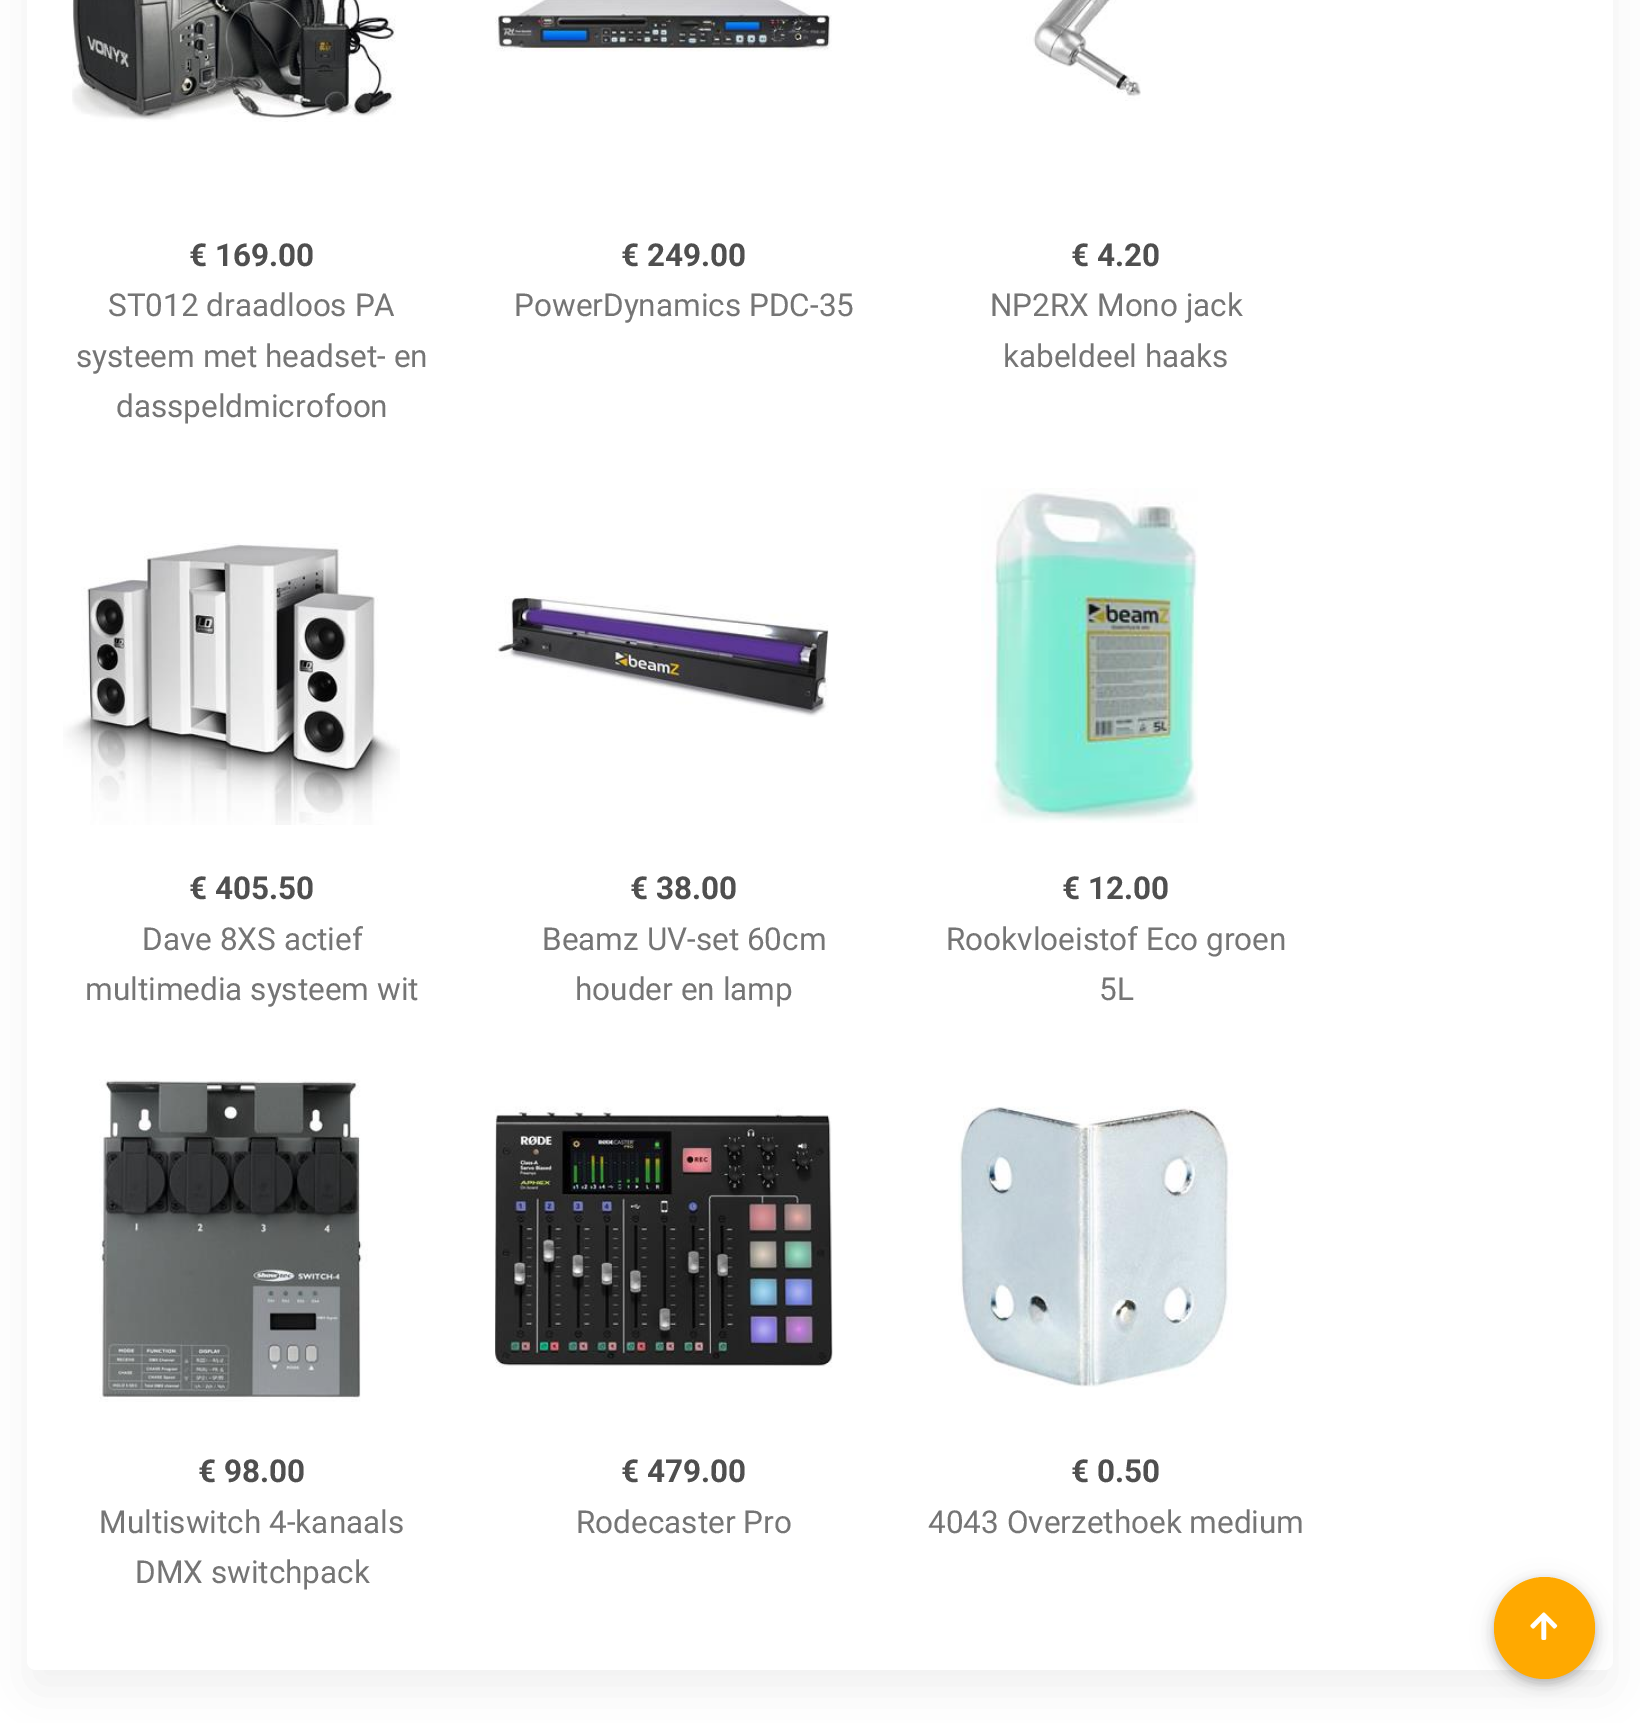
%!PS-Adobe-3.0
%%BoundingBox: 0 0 1640 1723
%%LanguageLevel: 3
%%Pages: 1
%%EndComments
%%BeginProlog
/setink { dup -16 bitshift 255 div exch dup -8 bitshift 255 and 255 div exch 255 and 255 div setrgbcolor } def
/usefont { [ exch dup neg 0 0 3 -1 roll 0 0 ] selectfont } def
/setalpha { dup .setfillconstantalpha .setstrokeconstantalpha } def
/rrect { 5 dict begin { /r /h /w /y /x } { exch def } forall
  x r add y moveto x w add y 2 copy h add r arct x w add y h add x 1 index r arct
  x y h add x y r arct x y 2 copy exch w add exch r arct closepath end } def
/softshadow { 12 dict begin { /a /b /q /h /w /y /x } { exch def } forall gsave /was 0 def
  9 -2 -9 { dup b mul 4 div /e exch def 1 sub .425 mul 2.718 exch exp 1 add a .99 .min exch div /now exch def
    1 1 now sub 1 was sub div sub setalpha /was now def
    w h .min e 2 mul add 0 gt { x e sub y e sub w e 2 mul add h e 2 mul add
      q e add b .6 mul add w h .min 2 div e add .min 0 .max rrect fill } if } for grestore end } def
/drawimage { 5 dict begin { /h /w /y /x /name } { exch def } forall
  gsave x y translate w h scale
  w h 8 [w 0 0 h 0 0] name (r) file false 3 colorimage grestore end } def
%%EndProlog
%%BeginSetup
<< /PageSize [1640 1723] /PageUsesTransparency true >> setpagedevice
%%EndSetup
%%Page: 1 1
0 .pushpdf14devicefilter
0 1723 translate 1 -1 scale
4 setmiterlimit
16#FFFFFF setink
0 0 1640 1723 rectfill
16#000000 setink
27 -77 1586 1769 9 22.5 0.05 softshadow
16#FFFFFF setink
27 -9 1586 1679 9 rrect fill
(img1.raw) 72 0 324 122 drawimage
/Roboto-Bold 31.5 usefont
16#4F4F4F setink
189 266 moveto (€ 169.00) show
/Roboto-Regular 31.5 usefont
16#757575 setink
[
    [(ST012 draadloos PA) 108 316]
    [(systeem met headset- en) 76 367]
    [(dasspeldmicrofoon) 116 417]
] { aload pop moveto show } forall
(img2.raw) 495 0 337 52 drawimage
/Roboto-Bold 31.5 usefont
16#4F4F4F setink
621 266 moveto (€ 249.00) show
/Roboto-Regular 31.5 usefont
16#757575 setink
514 316 moveto (PowerDynamics PDC-35) show
(img3.raw) 1026 0 115 101 drawimage
/Roboto-Bold 31.5 usefont
16#4F4F4F setink
1071 266 moveto (€ 4.20) show
/Roboto-Regular 31.5 usefont
16#757575 setink
990 316 moveto (NP2RX Mono jack) show
1003 367 moveto (kabeldeel haaks) show
(img4.raw) 63 543 337 282 drawimage
/Roboto-Bold 31.5 usefont
16#4F4F4F setink
189 899 moveto (€ 405.50) show
/Roboto-Regular 31.5 usefont
16#757575 setink
142 950 moveto (Dave 8XS actief) show
85 1000 moveto (multimedia systeem wit) show
(img5.raw) 495 596 334 121 drawimage
/Roboto-Bold 31.5 usefont
16#4F4F4F setink
630 899 moveto (€ 38.00) show
/Roboto-Regular 31.5 usefont
16#757575 setink
542 950 moveto (Beamz UV-set 60cm) show
575 1000 moveto (houder en lamp) show
(img6.raw) 981 488 217 335 drawimage
/Roboto-Bold 31.5 usefont
16#4F4F4F setink
1062 899 moveto (€ 12.00) show
/Roboto-Regular 31.5 usefont
16#757575 setink
946 950 moveto (Rookvloeistof Eco groen) show
1099 1000 moveto (5L) show
(img7.raw) 99 1079 269 323 drawimage
/Roboto-Bold 31.5 usefont
16#4F4F4F setink
198 1482 moveto (€ 98.00) show
/Roboto-Regular 31.5 usefont
16#757575 setink
99 1533 moveto (Multiswitch 4-kanaals) show
135 1583 moveto (DMX switchpack) show
(img8.raw) 495 1106 338 262 drawimage
/Roboto-Bold 31.5 usefont
16#4F4F4F setink
621 1482 moveto (€ 479.00) show
/Roboto-Regular 31.5 usefont
16#757575 setink
576 1533 moveto (Rodecaster Pro) show
(img9.raw) 958 1106 275 281 drawimage
/Roboto-Bold 31.5 usefont
16#4F4F4F setink
1071 1482 moveto (€ 0.50) show
/Roboto-Regular 31.5 usefont
16#757575 setink
928 1533 moveto (4043 Overzethoek medium) show
16#000000 setink
1494 1582 101 101 50.5 11 0.1 softshadow
1494 1582 101 101 50.5 5.5 0.2 softshadow
16#FFA900 setink
1494 1577 101 102 50.5 rrect fill
(img10.raw) 1530 1612 28 28 drawimage
.poppdf14devicefilter showpage
%%EOF
